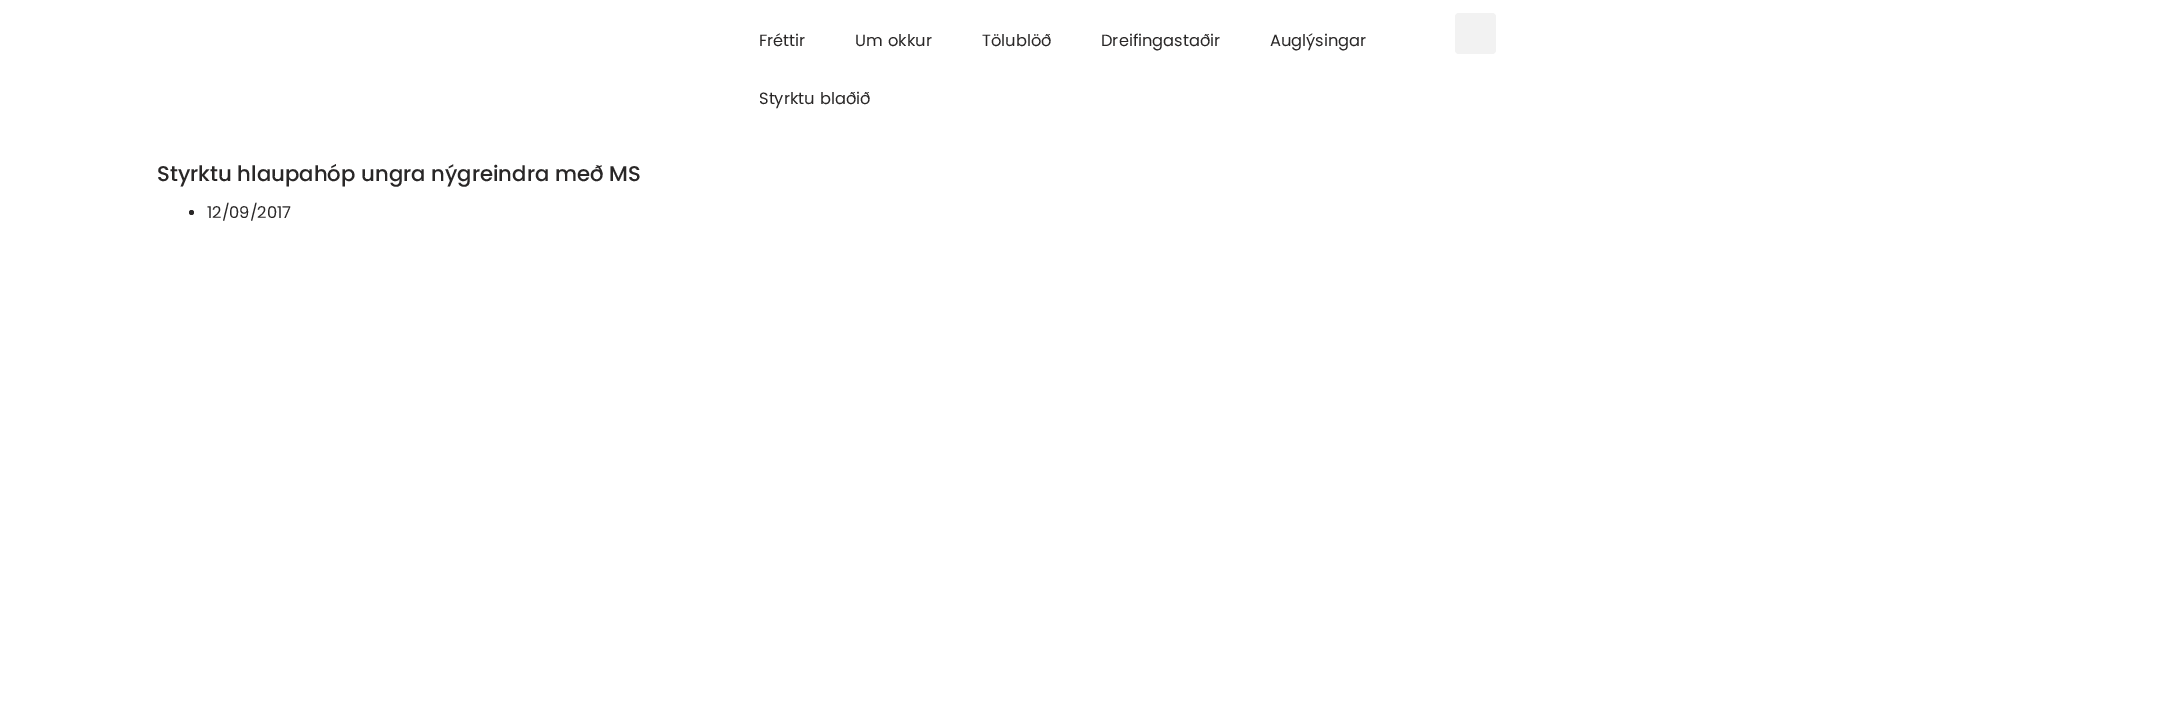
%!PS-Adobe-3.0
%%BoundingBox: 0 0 2163 707
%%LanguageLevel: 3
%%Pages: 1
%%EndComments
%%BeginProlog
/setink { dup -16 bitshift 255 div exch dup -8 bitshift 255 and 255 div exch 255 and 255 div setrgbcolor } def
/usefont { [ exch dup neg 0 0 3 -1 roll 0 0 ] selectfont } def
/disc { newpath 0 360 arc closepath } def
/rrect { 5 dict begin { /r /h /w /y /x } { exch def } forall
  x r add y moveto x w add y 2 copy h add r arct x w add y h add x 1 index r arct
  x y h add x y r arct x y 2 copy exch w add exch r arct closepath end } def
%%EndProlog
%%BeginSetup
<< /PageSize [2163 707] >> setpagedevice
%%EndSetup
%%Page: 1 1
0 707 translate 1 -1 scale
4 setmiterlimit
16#FFFFFF setink
0 0 2163 707 rectfill
/Poppins-Regular 16.25 usefont
16#292727 setink
759 46 moveto (Fréttir) show
855 46 moveto 1 0 32 (Um okkur) widthshow
[
    [(Tölublöð) 982 46]
    [(Dreifingastaðir) 1101 46]
    [(Auglýsingar) 1270 46]
] { aload pop moveto show } forall
759 104 moveto 1 0 32 (Styrktu blaðið) widthshow
16#F2F2F2 setink
1455 13 41 41 4 rrect fill
/Poppins-Medium 21.25 usefont
16#292727 setink
157 181 moveto (Styrktu hlaupahóp ungra nýgreindra með MS) show
191.5 212.5 2.5 disc fill
/Poppins-Regular 16.25 usefont
207 218 moveto (12/09/2017) show
showpage
%%EOF
